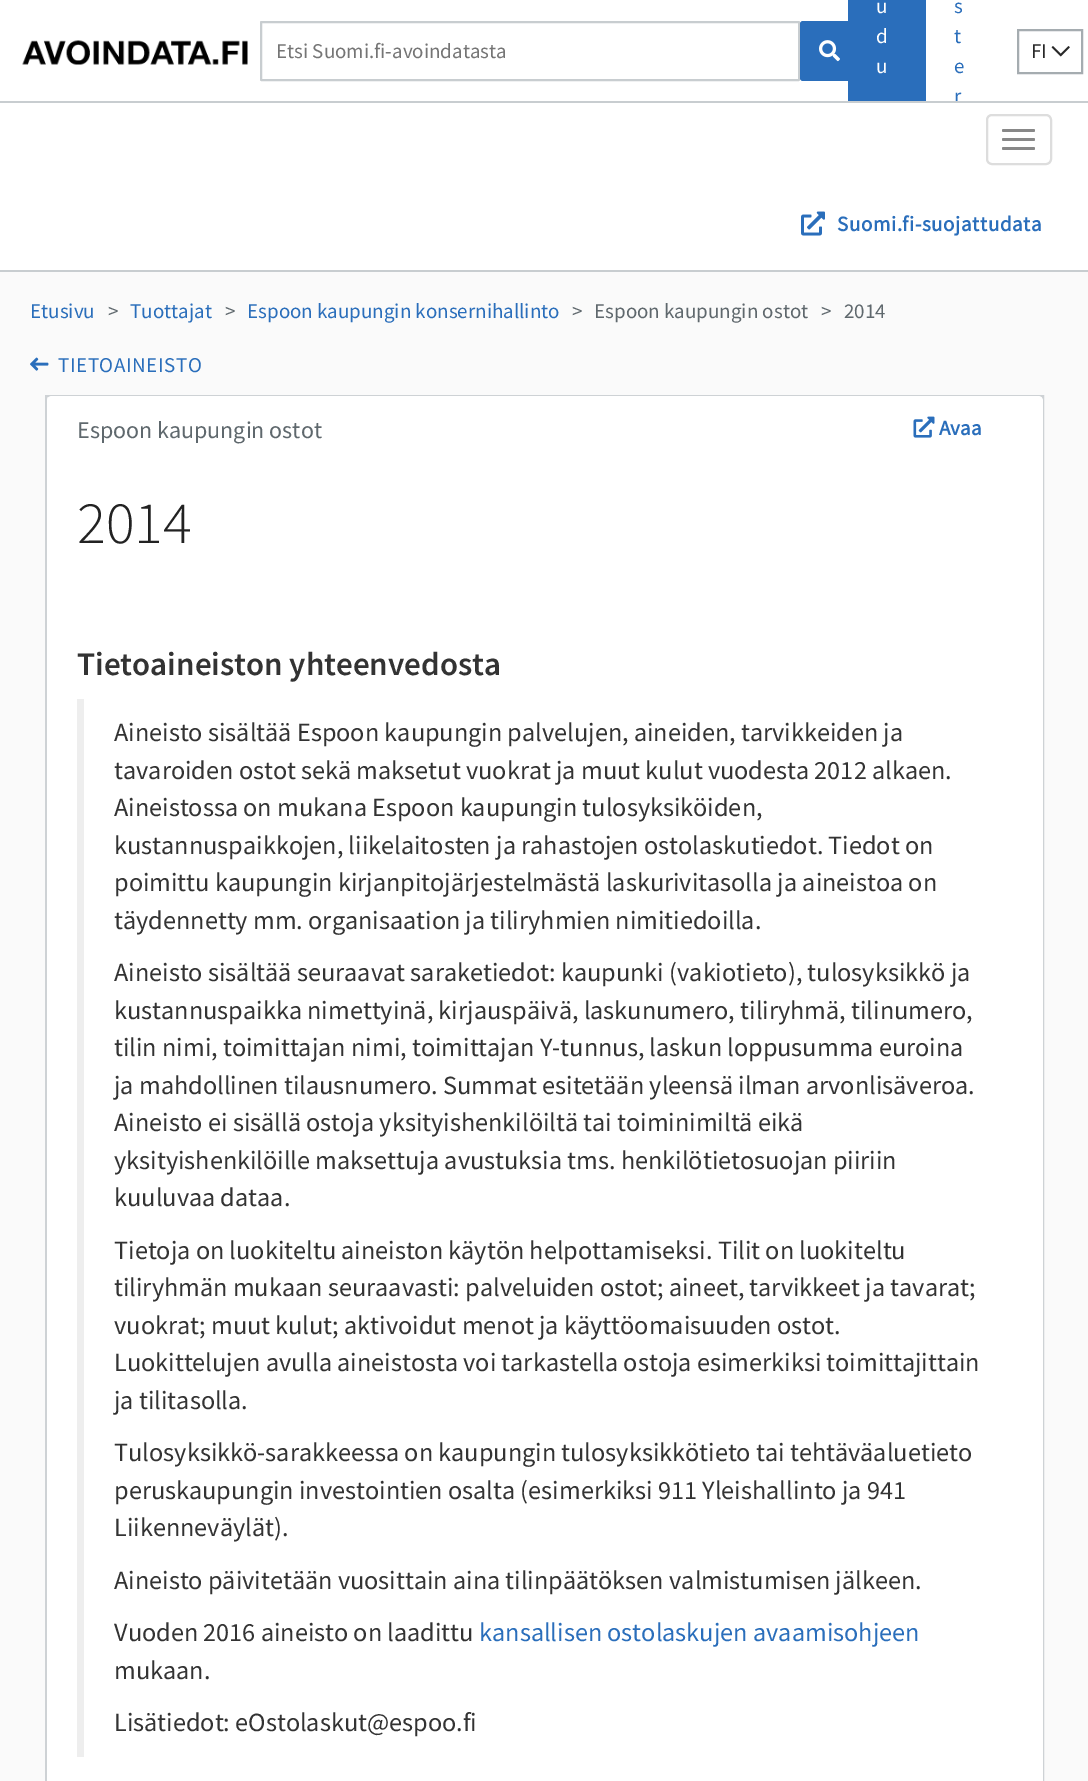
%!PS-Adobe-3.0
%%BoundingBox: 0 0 1088 1781
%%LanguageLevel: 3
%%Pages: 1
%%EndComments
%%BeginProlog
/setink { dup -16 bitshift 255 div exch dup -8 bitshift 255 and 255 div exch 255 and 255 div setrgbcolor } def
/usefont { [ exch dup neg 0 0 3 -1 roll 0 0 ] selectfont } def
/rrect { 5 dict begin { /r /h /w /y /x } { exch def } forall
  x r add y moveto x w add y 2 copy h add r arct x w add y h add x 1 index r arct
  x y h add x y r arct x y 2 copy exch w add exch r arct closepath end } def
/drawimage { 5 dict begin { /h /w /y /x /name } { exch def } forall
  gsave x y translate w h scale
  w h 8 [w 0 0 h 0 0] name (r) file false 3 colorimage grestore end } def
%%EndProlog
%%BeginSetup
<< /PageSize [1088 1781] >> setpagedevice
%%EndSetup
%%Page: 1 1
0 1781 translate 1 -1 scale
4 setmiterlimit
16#FAFAFA setink
0 0 1088 1781 rectfill
16#FFFFFF setink
0 0 1088 101 rectfill
(img1.raw) 22 40 226 25 drawimage
16#C8CDD0 setink
2 setlinewidth
261 22 538 58 0.5 rrect stroke
/SourceSansPro-Regular 21 usefont
16#757575 setink
276 58 moveto (Etsi Suomi.fi-avoindatasta) show
16#2A6EBB setink
800 21 60 60 3 rrect fill
(img2.raw) 819 40 21 22 drawimage
848 0 78 101 rectfill
16#FFFFFF setink
[
    [(u) 876 13]
    [(d) 876 43]
    [(u) 876 73]
] { aload pop moveto show } forall
16#2A6EBB setink
[
    [(s) 954 13]
    [(t) 954 43]
    [(e) 954 73]
    [(r) 954 103]
] { aload pop moveto show } forall
16#A5ACB0 setink
1018 30 64 43 rectstroke
16#282828 setink
1031 58 moveto (FI) show
(img3.raw) 1051 46 19 11 drawimage
[
    [0 103 1088 167 16#FFFFFF]
    [0 101 1088 2 16#C8CDD0]
    [0 270 1088 2 16#C8CDD0]
] { aload pop setink rectfill } forall
16#DDDDDD setink
987 115 64 49 5 rrect stroke
16#888888 setink
1002 129 33 3 1.5 rrect fill
1002 138 33 3 1.5 rrect fill
1002 147 33 3 1.5 rrect fill
(img4.raw) 801 211 24 25 drawimage
/SourceSansPro-Bold 21 usefont
16#2A6EBB setink
837 231 moveto 0.6 0 (Suomi.fi-suojattudata) ashow
/SourceSansPro-Regular 21 usefont
30 318 moveto (Etusivu) show
16#5F686D setink
108 318 moveto (>) show
16#2A6EBB setink
130 318 moveto (Tuottajat) show
16#5F686D setink
225 318 moveto (>) show
16#2A6EBB setink
247 318 moveto (Espoon kaupungin konsernihallinto) show
16#5F686D setink
[
    [(>) 572 318]
    [(Espoon kaupungin ostot) 594 318]
    [(>) 821 318]
    [(2014) 844 318]
] { aload pop moveto show } forall
(img5.raw) 30 357 19 14 drawimage
16#2A6EBB setink
58 372 moveto 0.6 0 (TIETOAINEISTO) ashow
16#CED2D5 setink
46 396 997 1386 rectstroke
16#FFFFFF setink
52 396 moveto 1038 396 lineto 1041 396 1043 398 1043 401 curveto 1043 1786 lineto 47 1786 lineto 47 401 lineto 47 398 49 396 52 396 curveto closepath fill
/SourceSansPro-Regular 24 usefont
16#5F686D setink
77 438 moveto (Espoon kaupungin ostot) show
(img6.raw) 913 416 22 22 drawimage
/SourceSansPro-Bold 21 usefont
16#2A6EBB setink
939 435 moveto (Avaa) show
/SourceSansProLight-Light 60 usefont
16#222222 setink
77 543 moveto (2014) show
/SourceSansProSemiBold-SemiBold 33 usefont
16#333333 setink
77 675 moveto (Tietoaineiston yhteenvedosta) show
16#EEEEEE setink
77 699 7 1058 rectfill
/SourceSansPro-Regular 26.25 usefont
16#333333 setink
[
    [(Aineisto sisältää Espoon kaupungin palvelujen, aineiden, tarvikkeiden ja) 114 741]
    [(tavaroiden ostot sekä maksetut vuokrat ja muut kulut vuodesta 2012 alkaen.) 114 779]
    [(Aineistossa on mukana Espoon kaupungin tulosyksiköiden,) 114 816]
    [(kustannuspaikkojen, liikelaitosten ja rahastojen ostolaskutiedot. Tiedot on) 114 854]
    [(poimittu kaupungin kirjanpitojärjestelmästä laskurivitasolla ja aineistoa on) 114 891]
    [(täydennetty mm. organisaation ja tiliryhmien nimitiedoilla.) 114 929]
    [(Aineisto sisältää seuraavat saraketiedot: kaupunki \(vakiotieto\), tulosyksikkö ja) 114 981]
    [(kustannuspaikka nimettyinä, kirjauspäivä, laskunumero, tiliryhmä, tilinumero,) 114 1019]
    [(tilin nimi, toimittajan nimi, toimittajan Y-tunnus, laskun loppusumma euroina) 114 1056]
    [(ja mahdollinen tilausnumero. Summat esitetään yleensä ilman arvonlisäveroa.) 114 1094]
    [(Aineisto ei sisällä ostoja yksityishenkilöiltä tai toiminimiltä eikä) 114 1131]
    [(yksityishenkilöille maksettuja avustuksia tms. henkilötietosuojan piiriin) 114 1169]
    [(kuuluvaa dataa.) 114 1206]
    [(Tietoja on luokiteltu aineiston käytön helpottamiseksi. Tilit on luokiteltu) 114 1259]
    [(tiliryhmän mukaan seuraavasti: palveluiden ostot; aineet, tarvikkeet ja tavarat;) 114 1296]
    [(vuokrat; muut kulut; aktivoidut menot ja käyttöomaisuuden ostot.) 114 1334]
    [(Luokittelujen avulla aineistosta voi tarkastella ostoja esimerkiksi toimittajittain) 114 1371]
    [(ja tilitasolla.) 114 1409]
    [(Tulosyksikkö-sarakkeessa on kaupungin tulosyksikkötieto tai tehtäväaluetieto) 114 1461]
    [(peruskaupungin investointien osalta \(esimerkiksi 911 Yleishallinto ja 941) 114 1499]
    [(Liikenneväylät\).) 114 1536]
    [(Aineisto päivitetään vuosittain aina tilinpäätöksen valmistumisen jälkeen.) 114 1589]
    [(Vuoden 2016 aineisto on laadittu) 114 1641]
] { aload pop moveto show } forall
16#2A6EBB setink
479 1641 moveto (kansallisen ostolaskujen avaamisohjeen) show
16#333333 setink
114 1679 moveto (mukaan.) show
114 1731 moveto (Lisätiedot: eOstolaskut@espoo.fi) show
showpage
%%EOF
